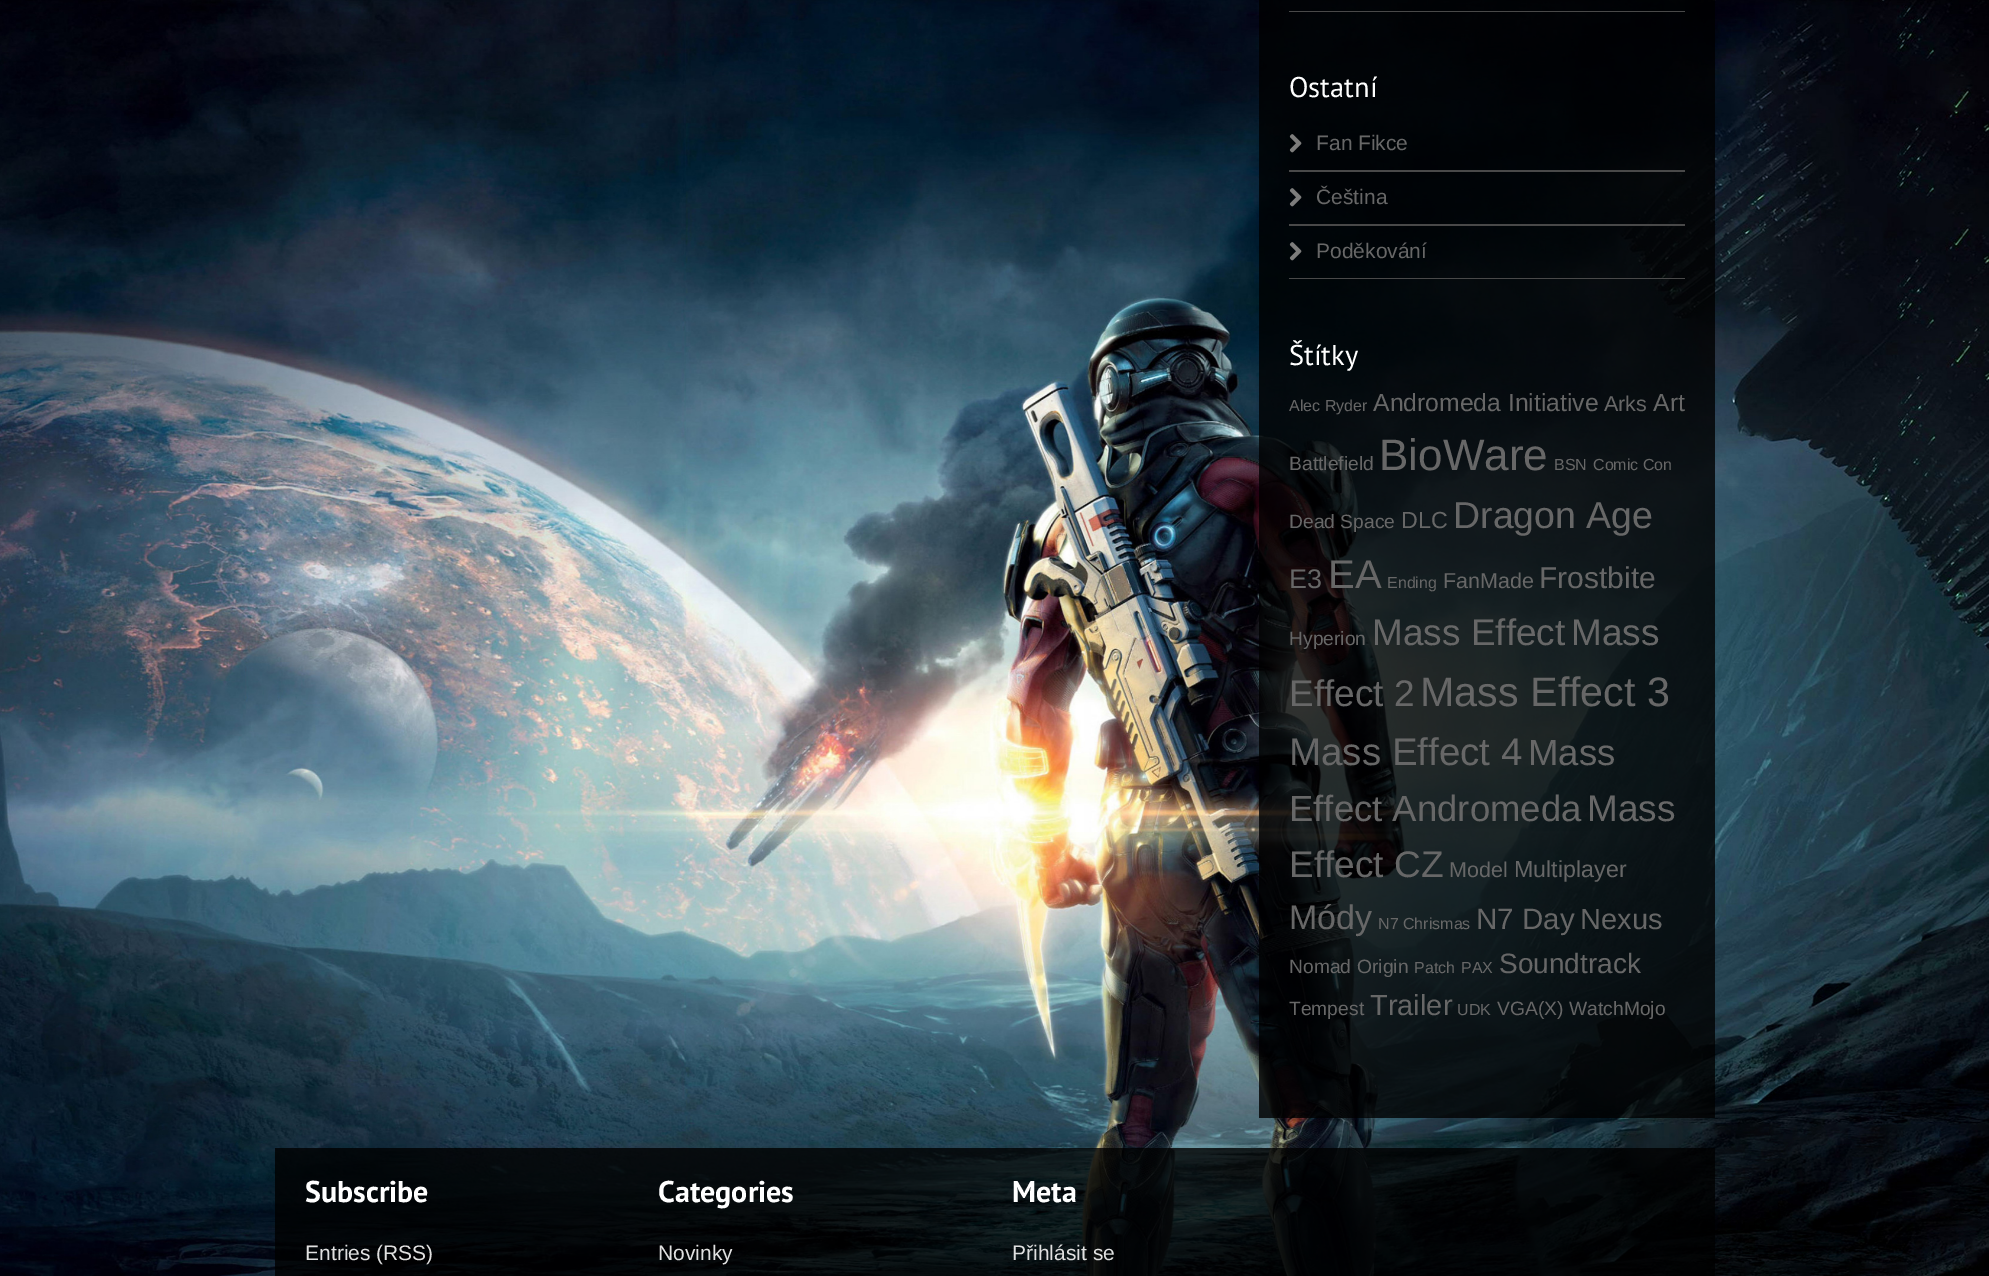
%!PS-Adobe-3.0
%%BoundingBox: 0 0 1989 1276
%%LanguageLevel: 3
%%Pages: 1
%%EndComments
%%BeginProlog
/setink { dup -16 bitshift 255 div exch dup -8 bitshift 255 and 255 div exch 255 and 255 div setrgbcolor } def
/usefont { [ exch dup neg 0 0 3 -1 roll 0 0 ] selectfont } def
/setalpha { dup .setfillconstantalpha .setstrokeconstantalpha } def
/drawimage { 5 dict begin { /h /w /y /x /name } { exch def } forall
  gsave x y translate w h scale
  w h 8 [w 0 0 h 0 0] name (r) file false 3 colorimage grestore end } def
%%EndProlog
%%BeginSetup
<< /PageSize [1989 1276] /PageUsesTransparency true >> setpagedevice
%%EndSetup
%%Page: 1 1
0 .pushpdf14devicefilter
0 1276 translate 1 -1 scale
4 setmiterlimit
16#FFFFFF setink
0 0 1989 1276 rectfill
(img1.raw) 0 0 1989 1276 drawimage
0.8 setalpha
16#000000 setink
1259 0 456 1118 rectfill
1 setalpha
16#494949 setink
1289 11 396 1 rectfill
/PTSans-Regular 28.5 usefont
16#FFFFFF setink
1289 97 moveto (Ostatní) show
16#494949 setink
1289 170 396 2 rectfill
(img2.raw) 1289 134 13 19 drawimage
/LiberationSans-Regular 21 usefont
16#676767 setink
1316 150 moveto (Fan Fikce) show
16#494949 setink
1289 224 396 2 rectfill
(img3.raw) 1289 188 13 19 drawimage
16#676767 setink
1316 204 moveto (Čeština) show
16#494949 setink
1289 278 396 1 rectfill
(img4.raw) 1289 242 13 19 drawimage
16#676767 setink
1316 258 moveto (Poděkování) show
/PTSans-Regular 28.5 usefont
16#FFFFFF setink
1289 365 moveto (Štítky) show
/LiberationSans-Regular 16 usefont
16#676767 setink
1289 411 moveto (Alec Ryder) show
/LiberationSans-Regular 24.75 usefont
1373 411 moveto (Andromeda Initiative) show
/LiberationSans-Regular 21.5 usefont
1604 411 moveto (Arks) show
/LiberationSans-Regular 24.75 usefont
1653 411 moveto (Art) show
/LiberationSans-Regular 19.25 usefont
1289 470 moveto (Battlefield) show
/LiberationSans-Regular 44 usefont
1379 470 moveto (BioWare) show
/LiberationSans-Regular 16 usefont
1554 470 moveto (BSN) show
1593 470 moveto (Comic Con) show
/LiberationSans-Regular 19.25 usefont
1289 528 moveto (Dead Space) show
/LiberationSans-Regular 23.25 usefont
1401 528 moveto (DLC) show
/LiberationSans-Regular 37.5 usefont
1453 528 moveto (Dragon Age) show
/LiberationSans-Regular 27 usefont
1289 588 moveto (E3) show
/LiberationSans-Regular 40 usefont
1328 588 moveto (EA) show
/LiberationSans-Regular 16 usefont
1387 588 moveto (Ending) show
/LiberationSans-Regular 21.5 usefont
1443 588 moveto (FanMade) show
/LiberationSans-Regular 30 usefont
1539 588 moveto (Frostbite) show
/LiberationSans-Regular 19.25 usefont
1289 645 moveto (Hyperion) show
/LiberationSans-Regular 37 usefont
[
    [(Mass Effect) 1372 645]
    [(Mass) 1571 645]
    [(Effect 2) 1289 706]
] { aload pop moveto show } forall
/LiberationSans-Regular 41.25 usefont
1420 706 moveto (Mass Effect 3) show
/LiberationSans-Regular 38.5 usefont
1289 765 moveto (Mass Effect 4) show
/LiberationSans-Regular 36.5 usefont
1528 765 moveto (Mass) show
1289 821 moveto (Effect Andromeda) show
/LiberationSans-Regular 37 usefont
1587 821 moveto (Mass) show
1289 877 moveto (Effect CZ) show
/LiberationSans-Regular 21.5 usefont
1449 877 moveto (Model) show
/LiberationSans-Regular 23.25 usefont
1514 877 moveto (Multiplayer) show
/LiberationSans-Regular 34 usefont
1289 929 moveto (Módy) show
/LiberationSans-Regular 16 usefont
1378 929 moveto (N7 Chrismas) show
/LiberationSans-Regular 29.5 usefont
1476 929 moveto (N7 Day) show
/LiberationSans-Regular 29 usefont
1580 929 moveto (Nexus) show
/LiberationSans-Regular 19.25 usefont
1289 973 moveto (Nomad) show
1357 973 moveto (Origin) show
/LiberationSans-Regular 16 usefont
1414 973 moveto (Patch) show
1461 973 moveto (PAX) show
/LiberationSans-Regular 28 usefont
1499 973 moveto (Soundtrack) show
/LiberationSans-Regular 19.25 usefont
1289 1015 moveto (Tempest) show
/LiberationSans-Regular 29 usefont
1370 1015 moveto (Trailer) show
/LiberationSans-Regular 16 usefont
1457 1015 moveto (UDK) show
/LiberationSans-Regular 19.25 usefont
1497 1015 moveto (VGA\(X\)) show
1569 1015 moveto (WatchMojo) show
0.8 setalpha
16#000000 setink
275 1148 1440 128 rectfill
/PTSans-Bold 30 usefont
1 setalpha
16#FFFFFF setink
305 1202 moveto (Subscribe) show
/LiberationSans-Regular 21 usefont
16#E0E0E0 setink
305 1260 moveto (Entries \(RSS\)) show
/PTSans-Bold 30 usefont
16#FFFFFF setink
658 1202 moveto (Categories) show
/LiberationSans-Regular 21 usefont
16#E0E0E0 setink
658 1260 moveto (Novinky) show
/PTSans-Bold 30 usefont
16#FFFFFF setink
1012 1202 moveto (Meta) show
/LiberationSans-Regular 21 usefont
16#E0E0E0 setink
1012 1260 moveto (Přihlásit se) show
.poppdf14devicefilter showpage
%%EOF
